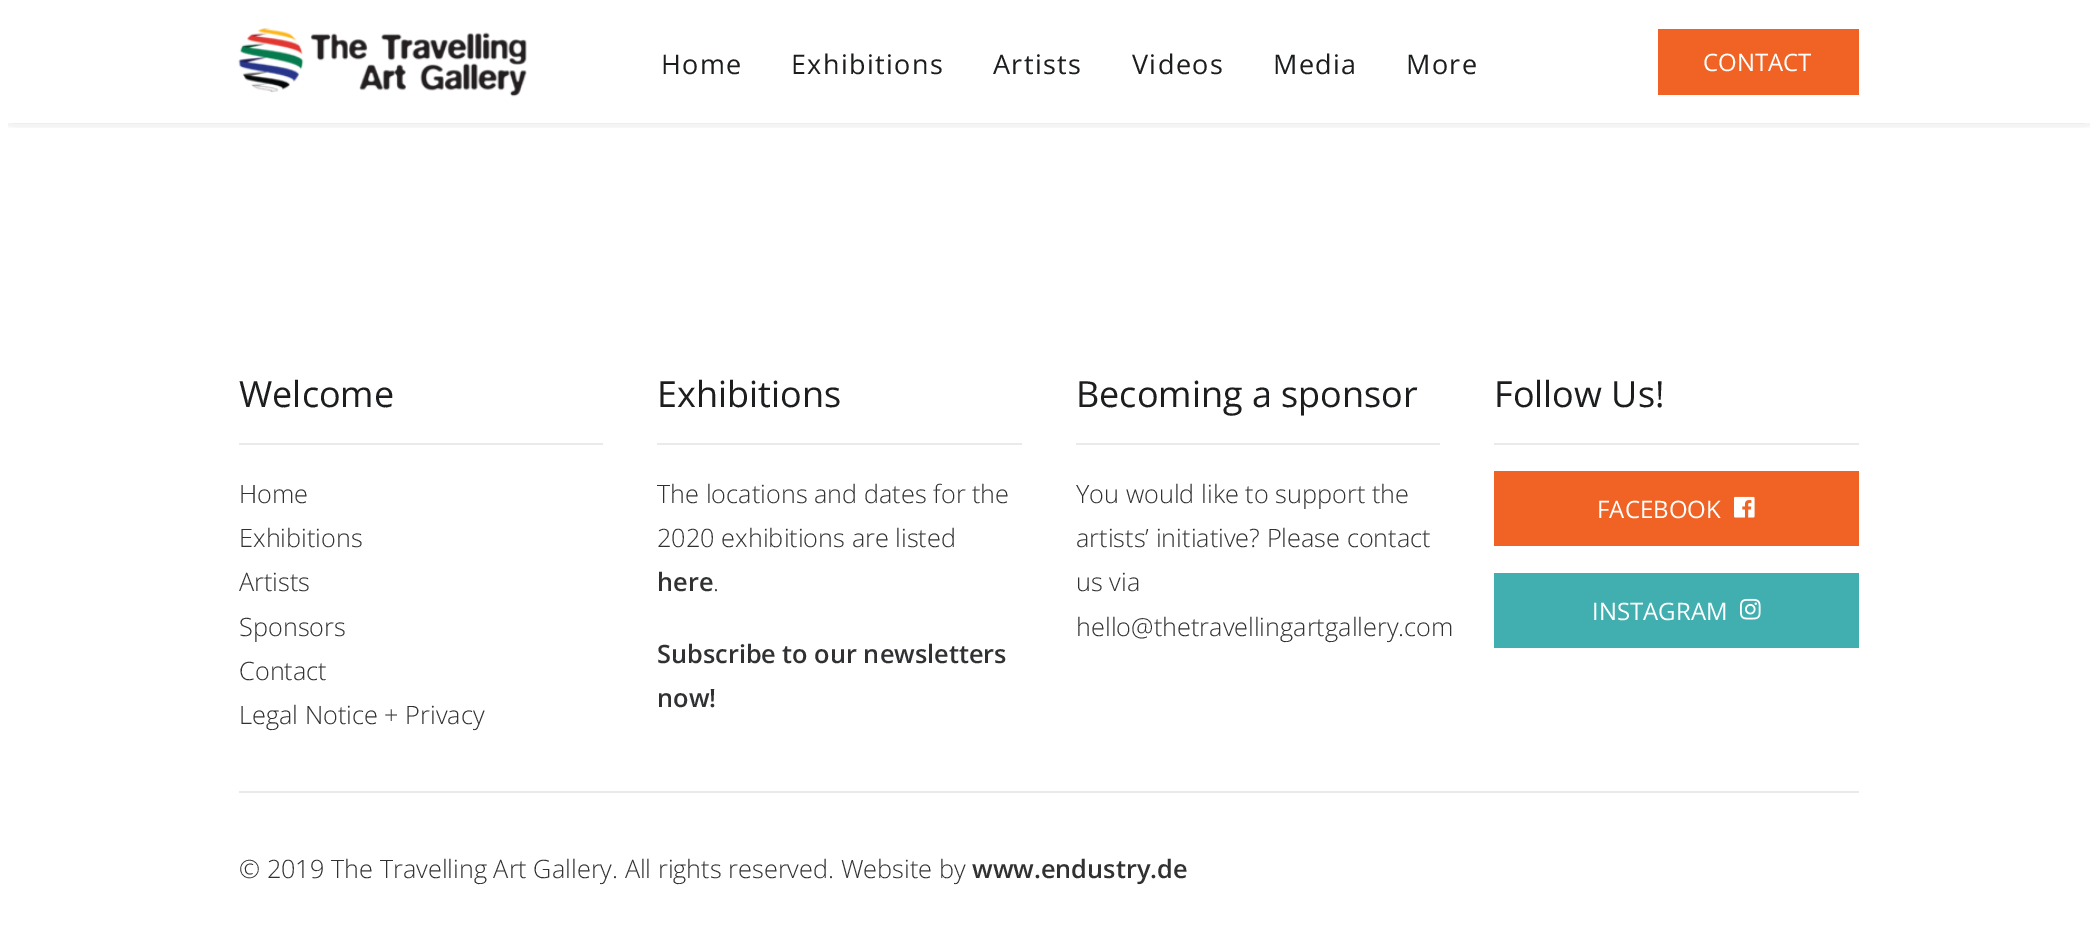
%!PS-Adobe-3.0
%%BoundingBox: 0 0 2097 945
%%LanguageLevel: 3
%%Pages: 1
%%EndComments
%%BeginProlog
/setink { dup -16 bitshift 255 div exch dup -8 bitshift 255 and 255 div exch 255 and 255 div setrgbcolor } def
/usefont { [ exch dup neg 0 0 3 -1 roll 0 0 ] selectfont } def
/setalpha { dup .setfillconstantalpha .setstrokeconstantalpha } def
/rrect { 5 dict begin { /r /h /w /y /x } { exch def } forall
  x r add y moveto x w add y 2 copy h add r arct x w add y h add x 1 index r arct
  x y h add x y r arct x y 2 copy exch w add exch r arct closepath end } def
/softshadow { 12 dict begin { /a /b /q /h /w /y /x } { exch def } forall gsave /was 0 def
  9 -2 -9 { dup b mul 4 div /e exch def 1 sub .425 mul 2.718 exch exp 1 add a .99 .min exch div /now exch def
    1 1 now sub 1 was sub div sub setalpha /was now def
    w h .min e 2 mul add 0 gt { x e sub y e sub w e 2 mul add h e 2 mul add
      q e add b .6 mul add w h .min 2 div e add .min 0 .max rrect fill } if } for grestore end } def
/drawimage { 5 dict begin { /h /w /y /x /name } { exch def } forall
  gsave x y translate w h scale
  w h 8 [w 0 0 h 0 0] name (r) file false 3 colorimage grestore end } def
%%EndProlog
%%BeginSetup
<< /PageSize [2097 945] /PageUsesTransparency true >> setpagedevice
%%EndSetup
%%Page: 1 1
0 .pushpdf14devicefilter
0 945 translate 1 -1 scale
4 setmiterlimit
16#FFFFFF setink
0 0 2097 945 rectfill
gsave
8 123 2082 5 rectclip
16#000000 setink
11 21 2076 93 0 7.5 0.6 softshadow
grestore
(img1.raw) 238 28 289 69 drawimage
/OpenSans-Regular 27 usefont
16#1B1D1F setink
661 74 moveto 1.4 0 (Home) ashow
791 74 moveto 1.4 0 (Exhibitions) ashow
993 74 moveto 1.4 0 (Artists) ashow
1132 74 moveto 1.4 0 (Videos) ashow
1273 74 moveto 1.4 0 (Media) ashow
1406 74 moveto 1.4 0 (More) ashow
16#F06325 setink
1658 29 201 66 rectfill
/OpenSans-Regular 24 usefont
16#FFFFFF setink
1703 71 moveto (CONTACT) show
/OpenSans-Regular 36 usefont
16#1B1D1F setink
239 407 moveto (Welcome) show
16#EAEAEA setink
239 443 364 2 rectfill
/OpenSans-Light 25.3 usefont
16#303133 setink
[
    [(Home) 239 503]
    [(Exhibitions) 239 547]
    [(Artists) 239 591]
    [(Sponsors) 239 636]
    [(Contact) 239 680]
    [(Legal Notice + Privacy) 239 724]
] { aload pop moveto show } forall
/OpenSans-Regular 36 usefont
16#1B1D1F setink
657 407 moveto (Exhibitions) show
16#EAEAEA setink
657 443 365 2 rectfill
/OpenSans-Light 25.3 usefont
16#303133 setink
657 503 moveto (The locations and dates for the) show
657 547 moveto (2020 exhibitions are listed) show
/OpenSans-SemiBold 25.3 usefont
657 591 moveto (here) show
/OpenSans-Light 25.3 usefont
713 591 moveto (.) show
/OpenSans-SemiBold 25.3 usefont
657 663 moveto (Subscribe to our newsletters) show
657 707 moveto (now!) show
/OpenSans-Regular 36 usefont
16#1B1D1F setink
1076 407 moveto (Becoming a sponsor) show
16#EAEAEA setink
1076 443 364 2 rectfill
/OpenSans-Light 25.3 usefont
16#303133 setink
[
    [(You would like to support the) 1076 503]
    [(artists’ initiative? Please contact) 1076 547]
    [(us via) 1076 591]
    [(hello@thetravellingartgallery.com) 1076 636]
] { aload pop moveto show } forall
/OpenSans-Regular 36 usefont
16#1B1D1F setink
1494 407 moveto (Follow Us!) show
16#EAEAEA setink
1494 443 365 2 rectfill
16#F06325 setink
1494 471 365 75 rectfill
/OpenSans-Regular 24 usefont
16#FFFFFF setink
1597 518 moveto (FACEBOOK) show
(img2.raw) 1734 496 21 22 drawimage
16#41AFB0 setink
1494 573 365 75 rectfill
16#FFFFFF setink
1592 620 moveto (INSTAGRAM) show
(img3.raw) 1740 598 21 22 drawimage
16#EAEAEA setink
239 791 1620 2 rectfill
/OpenSans-Light 25.3 usefont
16#303133 setink
239 878 moveto (© 2019 The Travelling Art Gallery. All rights reserved. Website by) show
/OpenSans-SemiBold 25.3 usefont
972 878 moveto (www.endustry.de) show
.poppdf14devicefilter showpage
%%EOF
